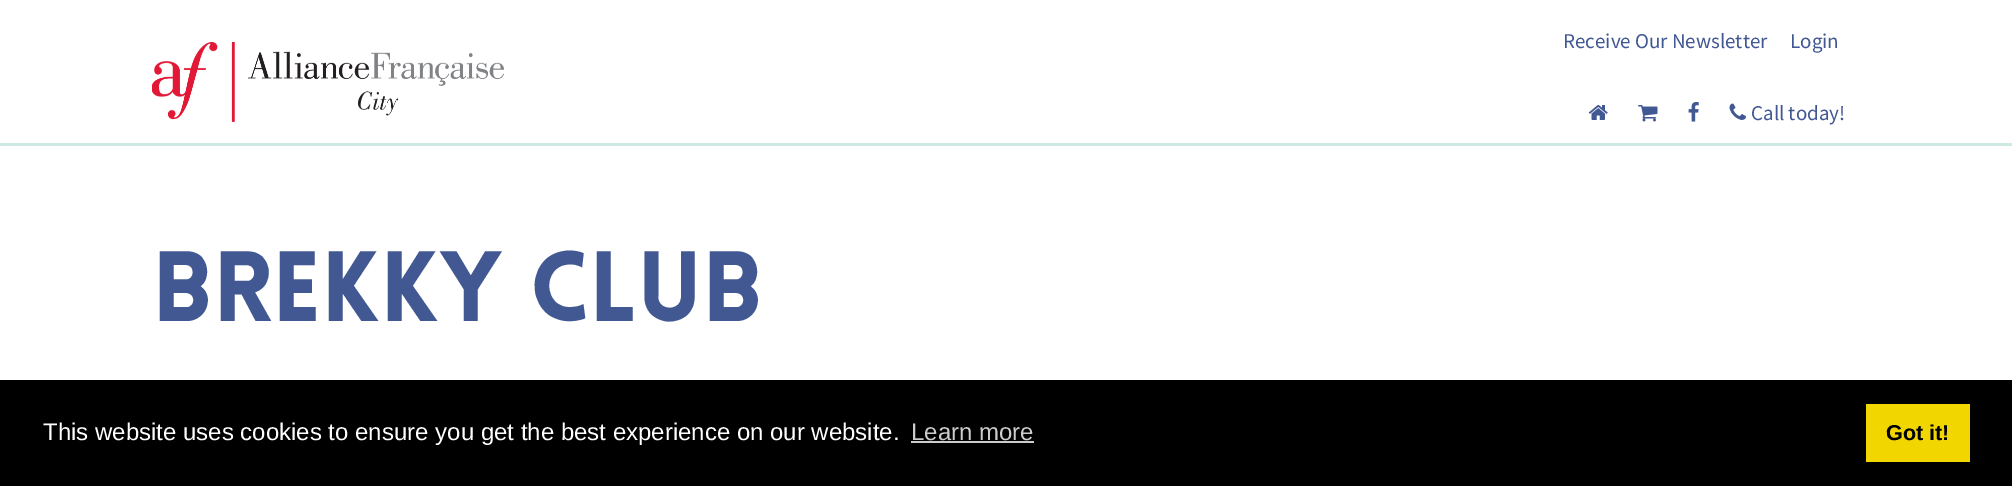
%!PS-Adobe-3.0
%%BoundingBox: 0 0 2012 486
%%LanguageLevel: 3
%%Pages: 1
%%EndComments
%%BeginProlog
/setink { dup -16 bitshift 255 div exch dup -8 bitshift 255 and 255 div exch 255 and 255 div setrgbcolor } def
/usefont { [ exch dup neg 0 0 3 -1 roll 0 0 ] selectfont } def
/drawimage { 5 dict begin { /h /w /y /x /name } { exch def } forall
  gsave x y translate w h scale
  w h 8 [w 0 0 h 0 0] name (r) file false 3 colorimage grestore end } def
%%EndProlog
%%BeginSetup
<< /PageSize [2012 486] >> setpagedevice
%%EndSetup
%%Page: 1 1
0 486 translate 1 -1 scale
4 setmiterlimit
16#FFFFFF setink
0 0 2012 486 rectfill
16#CEE8E3 setink
0 143 2012 3 rectfill
(img1.raw) 152 42 352 80 drawimage
/SourceSansPro-Regular 21 usefont
16#425893 setink
1563 48 moveto (Receive Our Newsletter) show
1790 48 moveto (Login) show
(img2.raw) 1588 105 20 15 drawimage
(img3.raw) 1638 105 20 17 drawimage
(img4.raw) 1688 102 11 20 drawimage
(img5.raw) 1729 103 17 17 drawimage
1751 120 moveto (Call today!) show
/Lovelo-Black 97.5 usefont
152 321 moveto (BREKKY CLUB) show
16#000000 setink
0 380 2012 106 rectfill
/LiberationSans-Regular 24 usefont
16#FFFFFF setink
43 440 moveto (This website uses cookies to ensure you get the best experience on our website.) show
16#CCCCCC setink
911 440 moveto (Learn more) show
911 441 123 2 rectfill
16#F1D600 setink
1866 404 104 58 rectfill
/LiberationSans-Bold 21.5 usefont
16#000000 setink
1886 440 moveto (Got it!) show
showpage
%%EOF
